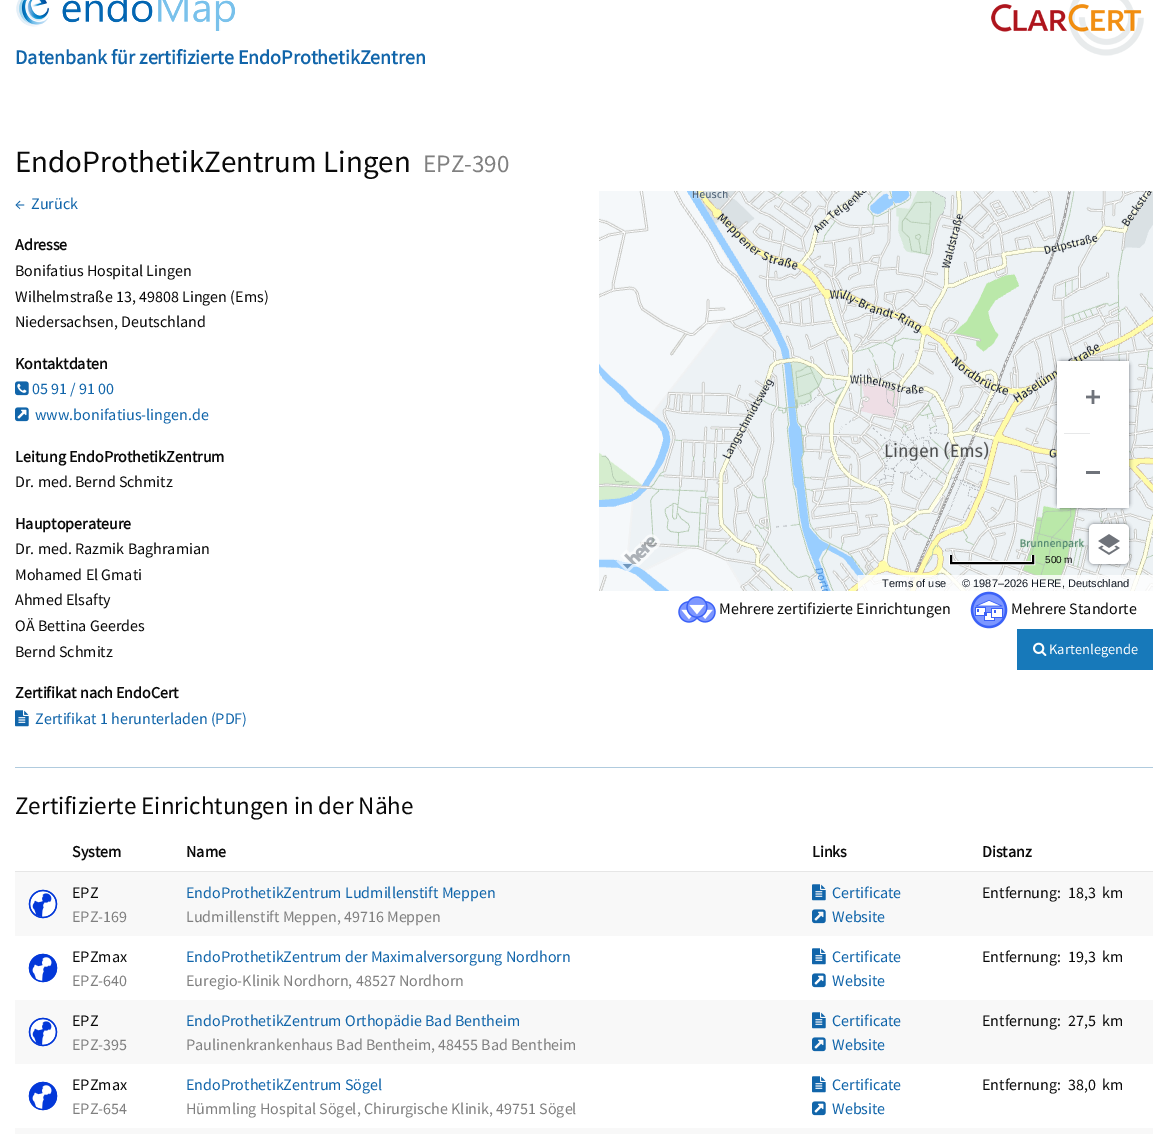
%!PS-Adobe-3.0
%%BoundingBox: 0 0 1168 1134
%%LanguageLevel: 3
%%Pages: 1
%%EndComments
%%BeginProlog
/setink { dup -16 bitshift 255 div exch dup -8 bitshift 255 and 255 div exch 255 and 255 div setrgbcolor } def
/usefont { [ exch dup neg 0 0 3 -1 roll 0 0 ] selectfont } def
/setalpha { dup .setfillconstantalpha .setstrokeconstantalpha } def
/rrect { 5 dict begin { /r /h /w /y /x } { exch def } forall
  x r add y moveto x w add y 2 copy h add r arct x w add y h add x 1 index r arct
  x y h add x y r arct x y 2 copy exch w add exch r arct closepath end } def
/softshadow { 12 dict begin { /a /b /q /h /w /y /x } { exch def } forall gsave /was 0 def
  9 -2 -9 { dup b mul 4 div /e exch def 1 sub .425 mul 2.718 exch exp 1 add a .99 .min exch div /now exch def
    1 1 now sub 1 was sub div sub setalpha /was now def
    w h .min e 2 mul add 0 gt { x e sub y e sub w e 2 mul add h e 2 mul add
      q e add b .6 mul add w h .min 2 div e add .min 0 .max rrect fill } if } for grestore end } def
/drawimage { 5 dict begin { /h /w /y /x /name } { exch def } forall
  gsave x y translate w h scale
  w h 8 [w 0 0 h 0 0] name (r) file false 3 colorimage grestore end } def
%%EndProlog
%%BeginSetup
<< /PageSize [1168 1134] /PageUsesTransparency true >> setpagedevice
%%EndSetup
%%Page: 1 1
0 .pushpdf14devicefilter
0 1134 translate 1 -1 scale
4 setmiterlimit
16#FFFFFF setink
0 0 1168 1134 rectfill
(img1.raw) 16 0 219 31 drawimage
/SourceSansPro-Bold 20 usefont
16#1165AA setink
15 64 moveto (Datenbank für zertifizierte EndoProthetikZentren) show
(img2.raw) 991 0 153 56 drawimage
/SourceSansPro-Regular 31 usefont
16#0A0A0A setink
15 172 moveto (EndoProthetikZentrum Lingen) show
/SourceSansPro-Regular 25 usefont
16#808080 setink
423 172 moveto (EPZ-390) show
/SourceSansPro-Regular 16 usefont
16#1165AA setink
15 209 moveto (←) show
31 209 moveto (Zurück) show
/SourceSansPro-Bold 16 usefont
16#0A0A0A setink
15 250 moveto (Adresse) show
/SourceSansPro-Regular 16 usefont
[
    [(Bonifatius Hospital Lingen) 15 276]
    [(Wilhelmstraße 13, 49808 Lingen \(Ems\)) 15 302]
    [(Niedersachsen, Deutschland) 15 327]
] { aload pop moveto show } forall
/SourceSansPro-Bold 16 usefont
15 369 moveto (Kontaktdaten) show
(img3.raw) 15 381 14 15 drawimage
/SourceSansPro-Regular 16 usefont
16#1165AA setink
32 394 moveto (05 91 / 91 00) show
(img4.raw) 15 407 14 15 drawimage
35 420 moveto (www.bonifatius-lingen.de) show
/SourceSansPro-Bold 16 usefont
16#0A0A0A setink
15 462 moveto (Leitung EndoProthetikZentrum) show
/SourceSansPro-Regular 16 usefont
15 487 moveto (Dr. med. Bernd Schmitz) show
/SourceSansPro-Bold 16 usefont
15 529 moveto (Hauptoperateure) show
/SourceSansPro-Regular 16 usefont
[
    [(Dr. med. Razmik Baghramian) 15 554]
    [(Mohamed El Gmati) 15 580]
    [(Ahmed Elsafty) 15 605]
    [(OÄ Bettina Geerdes) 15 631]
    [(Bernd Schmitz) 15 657]
] { aload pop moveto show } forall
/SourceSansPro-Bold 16 usefont
15 698 moveto (Zertifikat nach EndoCert) show
(img5.raw) 15 710 14 17 drawimage
/SourceSansPro-Regular 16 usefont
16#1165AA setink
35 724 moveto (Zertifikat 1 herunterladen \(PDF\)) show
16#F5F8FA setink
626 223 131 363 rectfill
(img6.raw) 599 191 554 400 drawimage
16#0F1621 setink
1057 361 72 147 5 2 0.6 softshadow
16#FFFFFF setink
1057 361 72 147 rectfill
(img7.raw) 1086 390 14 14 drawimage
16#E7E8E9 setink
1064 433 26 1 rectfill
16#6F737A setink
1086 471 14 3 rectfill
16#FFFFFF setink
4 setlinewidth
951 555 moveto 951 563 lineto 1033 563 lineto 1033 555 lineto stroke
16#000000 setink
2 setlinewidth
951 555 moveto 951 563 lineto 1033 563 lineto 1033 555 lineto stroke
/LiberationSans-Regular 10 usefont
16#0A0A0A setink
1045 563 moveto (500 m) show
16#0F1621 setink
1089 524 40 40 5 2 0.6 softshadow
16#FFFFFF setink
1089 524 40 40 5 rrect fill
(img8.raw) 1098 534 22 21 drawimage
(img9.raw) 616 534 45 38 drawimage
0.8 setalpha
858 575 295 16 rectfill
/LiberationSans-Regular 11 usefont
1 setalpha
16#0F1621 setink
882 587 moveto (Terms of use) show
962 587 moveto (© 1987–2026 HERE, Deutschland) show
(img10.raw) 678 596 38 27 drawimage
/SourceSansPro-Regular 16 usefont
16#0A0A0A setink
719 614 moveto (Mehrere zertifizierte Einrichtungen) show
(img11.raw) 970 591 38 38 drawimage
1011 614 moveto (Mehrere Standorte) show
16#1779BA setink
1017 629 136 41 rectfill
(img12.raw) 1033 642 14 14 drawimage
/SourceSansPro-Regular 14.5 usefont
16#FEFEFE setink
1049 654 moveto (Kartenlegende) show
16#B0CBDE setink
15 767 1138 1 rectfill
/SourceSansPro-Regular 25 usefont
16#0A0A0A setink
15 814 moveto (Zertifizierte Einrichtungen in der Nähe) show
16#E6E6E6 setink
15 871 1138 1 rectfill
/SourceSansPro-Bold 16 usefont
16#0A0A0A setink
[
    [(System) 72 857]
    [(Name) 186 857]
    [(Links) 812 857]
    [(Distanz) 982 857]
] { aload pop moveto show } forall
16#F8F8F8 setink
15 872 1138 64 rectfill
(img13.raw) 28 889 30 30 drawimage
/SourceSansPro-Regular 16 usefont
16#0A0A0A setink
72 898 moveto (EPZ) show
16#808080 setink
72 922 moveto (EPZ-169) show
16#1165AA setink
186 898 moveto (EndoProthetikZentrum Ludmillenstift Meppen) show
16#808080 setink
186 922 moveto (Ludmillenstift Meppen, 49716 Meppen) show
(img14.raw) 812 884 14 17 drawimage
16#1165AA setink
832 898 moveto (Certificate) show
(img15.raw) 812 909 14 15 drawimage
832 922 moveto (Website) show
16#0A0A0A setink
[
    [(Entfernung:) 982 898]
    [(18,3) 1068 898]
    [(km) 1102 898]
] { aload pop moveto show } forall
(img16.raw) 28 953 30 30 drawimage
72 962 moveto (EPZmax) show
16#808080 setink
72 986 moveto (EPZ-640) show
16#1165AA setink
186 962 moveto (EndoProthetikZentrum der Maximalversorgung Nordhorn) show
16#808080 setink
186 986 moveto (Euregio-Klinik Nordhorn, 48527 Nordhorn) show
(img5.raw) 812 948 14 17 drawimage
16#1165AA setink
832 962 moveto (Certificate) show
(img4.raw) 812 973 14 15 drawimage
832 986 moveto (Website) show
16#0A0A0A setink
[
    [(Entfernung:) 982 962]
    [(19,3) 1068 962]
    [(km) 1102 962]
] { aload pop moveto show } forall
16#F8F8F8 setink
15 1000 1138 64 rectfill
(img13.raw) 28 1017 30 30 drawimage
16#0A0A0A setink
72 1026 moveto (EPZ) show
16#808080 setink
72 1050 moveto (EPZ-395) show
16#1165AA setink
186 1026 moveto (EndoProthetikZentrum Orthopädie Bad Bentheim) show
16#808080 setink
186 1050 moveto (Paulinenkrankenhaus Bad Bentheim, 48455 Bad Bentheim) show
(img14.raw) 812 1012 14 17 drawimage
16#1165AA setink
832 1026 moveto (Certificate) show
(img15.raw) 812 1037 14 15 drawimage
832 1050 moveto (Website) show
16#0A0A0A setink
[
    [(Entfernung:) 982 1026]
    [(27,5) 1068 1026]
    [(km) 1102 1026]
] { aload pop moveto show } forall
(img16.raw) 28 1081 30 30 drawimage
72 1090 moveto (EPZmax) show
16#808080 setink
72 1114 moveto (EPZ-654) show
16#1165AA setink
186 1090 moveto (EndoProthetikZentrum Sögel) show
16#808080 setink
186 1114 moveto (Hümmling Hospital Sögel, Chirurgische Klinik, 49751 Sögel) show
(img5.raw) 812 1076 14 17 drawimage
16#1165AA setink
832 1090 moveto (Certificate) show
(img4.raw) 812 1101 14 15 drawimage
832 1114 moveto (Website) show
16#0A0A0A setink
[
    [(Entfernung:) 982 1090]
    [(38,0) 1068 1090]
    [(km) 1102 1090]
] { aload pop moveto show } forall
16#F8F8F8 setink
15 1128 1138 6 rectfill
.poppdf14devicefilter showpage
%%EOF
